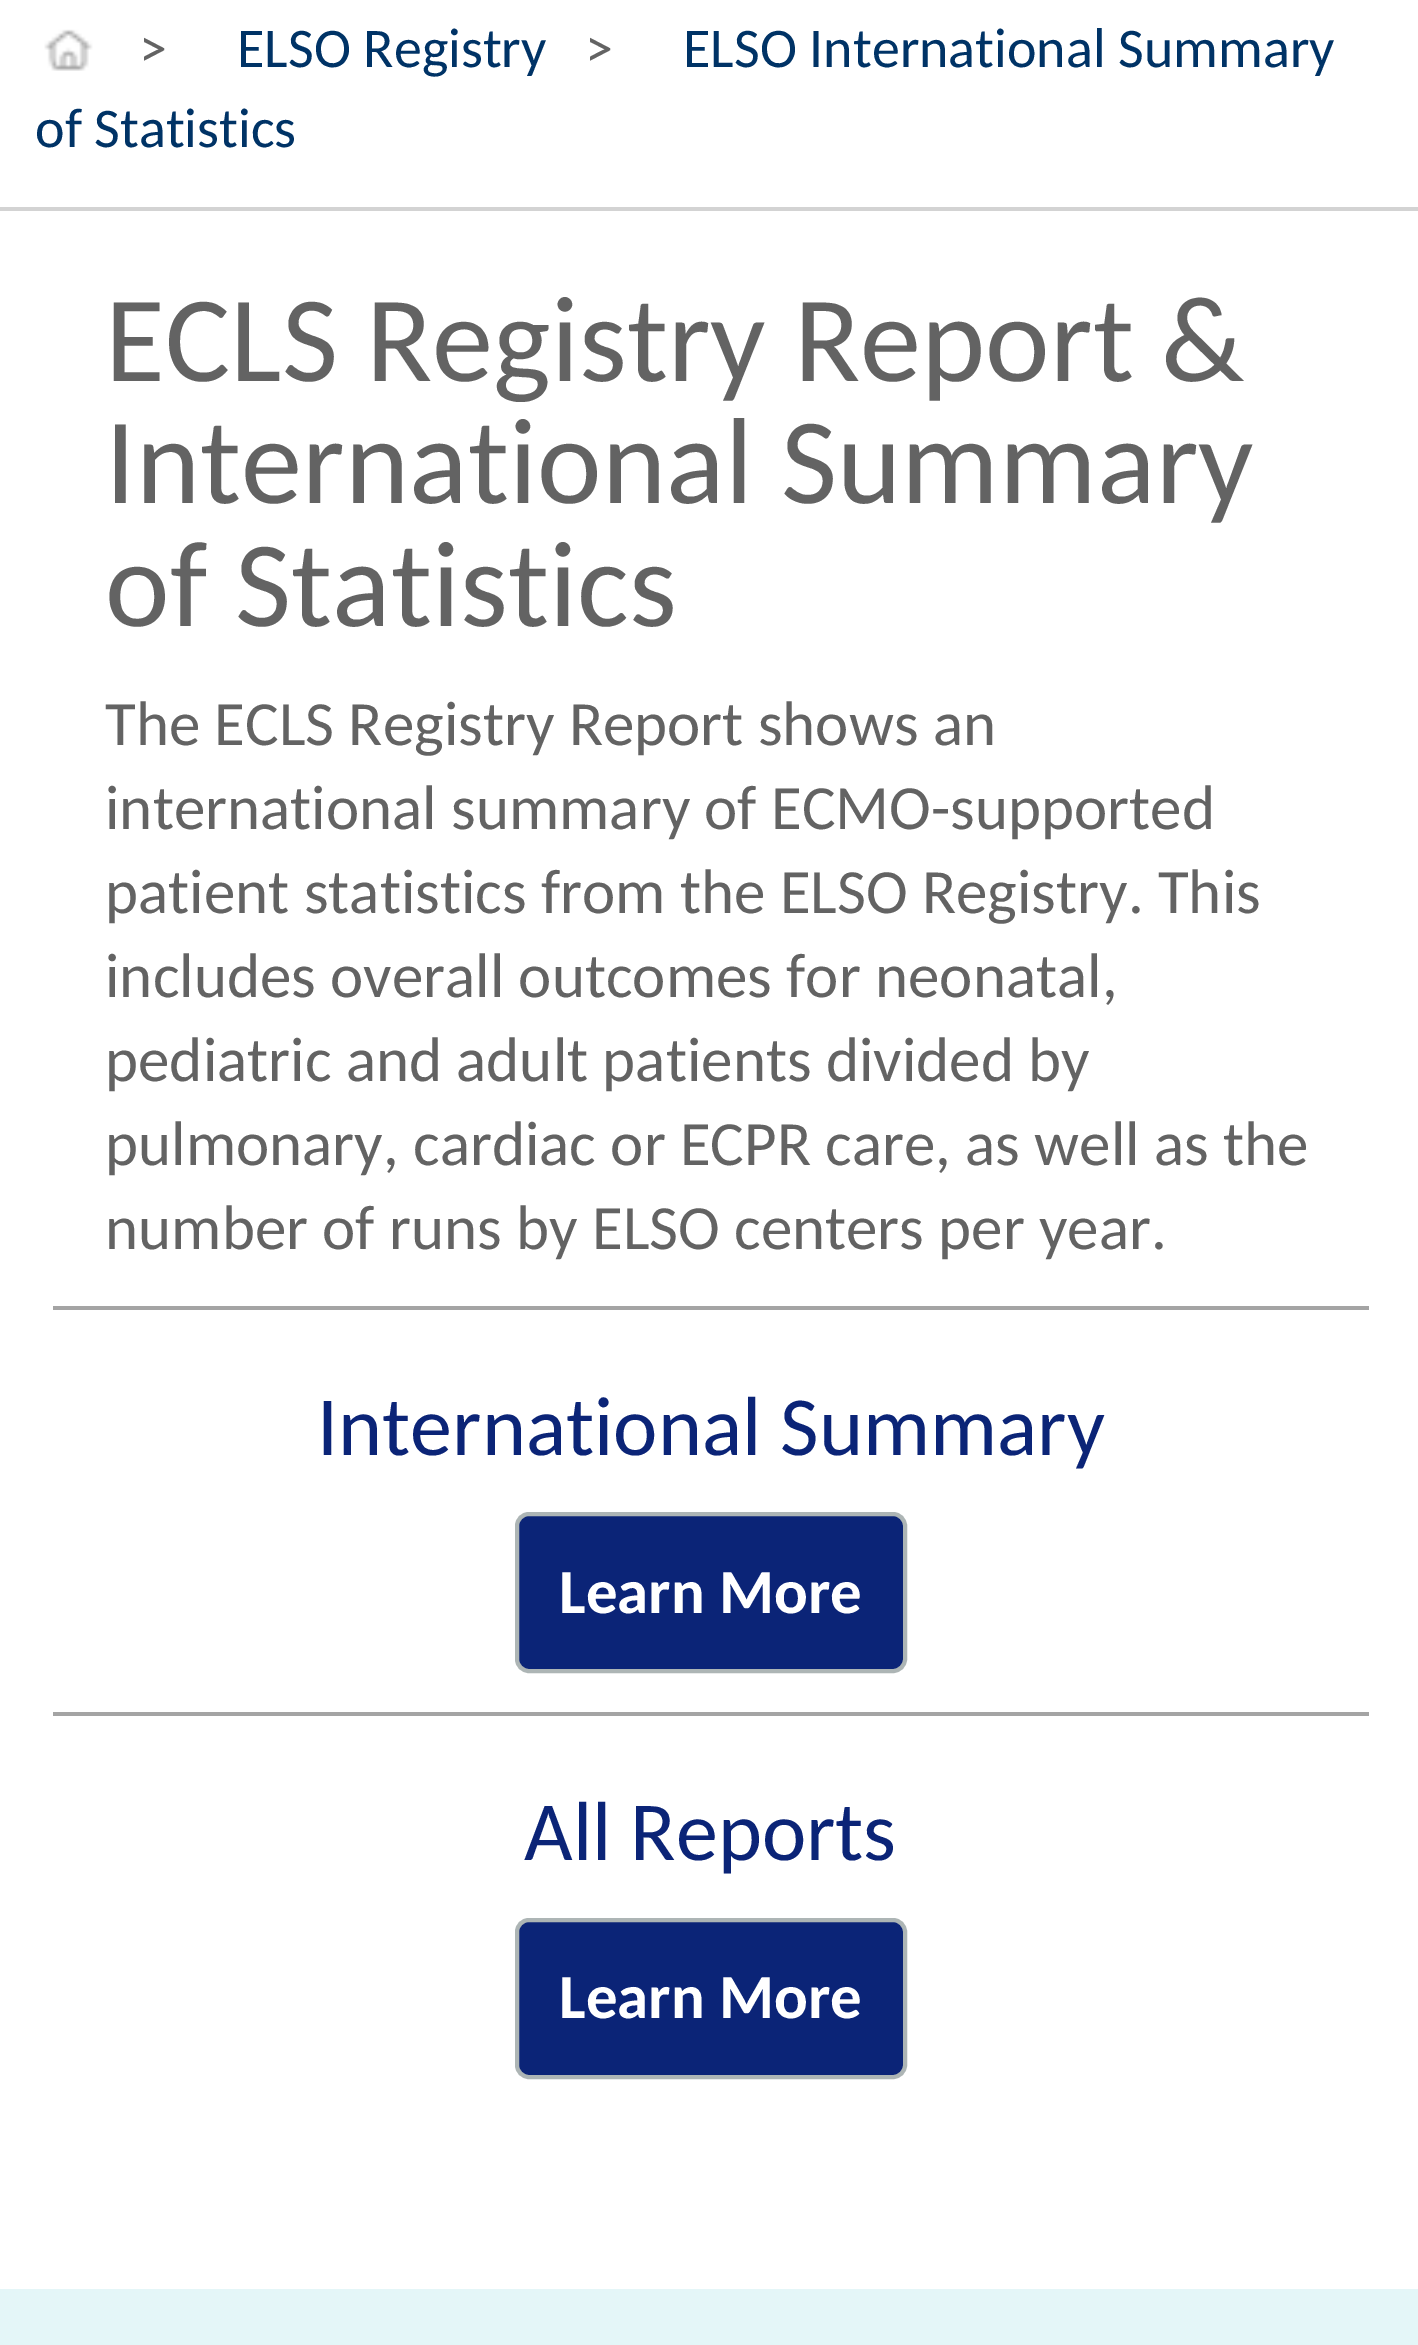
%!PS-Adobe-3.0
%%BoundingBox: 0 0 1418 2345
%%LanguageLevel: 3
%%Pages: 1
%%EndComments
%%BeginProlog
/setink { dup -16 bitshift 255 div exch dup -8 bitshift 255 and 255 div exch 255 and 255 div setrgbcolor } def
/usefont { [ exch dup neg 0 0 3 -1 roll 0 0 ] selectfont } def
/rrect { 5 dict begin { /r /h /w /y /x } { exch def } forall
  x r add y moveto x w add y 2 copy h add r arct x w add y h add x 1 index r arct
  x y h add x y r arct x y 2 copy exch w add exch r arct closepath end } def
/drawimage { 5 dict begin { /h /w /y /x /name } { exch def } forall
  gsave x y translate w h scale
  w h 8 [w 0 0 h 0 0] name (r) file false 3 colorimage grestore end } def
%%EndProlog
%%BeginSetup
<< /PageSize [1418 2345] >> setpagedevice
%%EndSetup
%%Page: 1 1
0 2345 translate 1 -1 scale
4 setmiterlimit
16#FFFFFF setink
0 0 1418 2345 rectfill
16#D3D3D3 setink
0 207 1418 4 rectfill
(img1.raw) 44 29 49 42 drawimage
/Carlito-Regular 56 usefont
16#636363 setink
139 67 moveto (>) show
16#003366 setink
237 67 moveto (ELSO Registry) show
16#636363 setink
585 67 moveto (>) show
16#003366 setink
683 67 moveto (ELSO International Summary) show
35 147 moveto (of Statistics) show
/Carlito-Regular 122.5 usefont
16#636363 setink
[
    [(ECLS Registry Report &) 105 381]
    [(International Summary) 105 503]
    [(of Statistics) 105 626]
] { aload pop moveto show } forall
/Carlito-Regular 63 usefont
[
    [(The ECLS Registry Report shows an) 105 745]
    [(international summary of ECMO-supported) 105 829]
    [(patient statistics from the ELSO Registry. This) 105 913]
    [(includes overall outcomes for neonatal,) 105 997]
    [(pediatric and adult patients divided by) 105 1081]
    [(pulmonary, cardiac or ECPR care, as well as the) 105 1165]
    [(number of runs by ELSO centers per year.) 105 1249]
] { aload pop moveto show } forall
16#A4A4A4 setink
53 1306 1316 4 rectfill
/Carlito-Regular 84 usefont
16#0B2477 setink
317 1455 moveto (International Summary) show
517 1514 388 157 12 rrect gsave fill grestore
16#ADB5B5 setink
4 setlinewidth
stroke
/Carlito-Bold 63 usefont
16#FFFFFF setink
559 1613 moveto (Learn More) show
16#A4A4A4 setink
53 1712 1316 4 rectfill
/Carlito-Regular 84 usefont
16#0B2477 setink
524 1860 moveto (All Reports) show
517 1920 388 157 12 rrect gsave fill grestore
16#ADB5B5 setink
stroke
/Carlito-Bold 63 usefont
16#FFFFFF setink
559 2018 moveto (Learn More) show
16#E4F6F8 setink
0 2289 1418 56 rectfill
showpage
%%EOF
